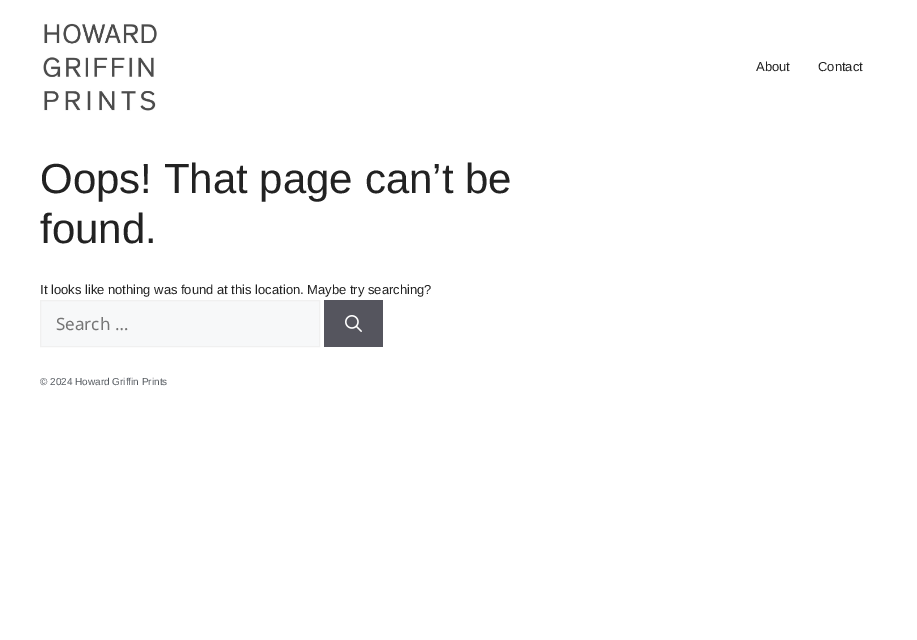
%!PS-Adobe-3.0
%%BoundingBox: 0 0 917 640
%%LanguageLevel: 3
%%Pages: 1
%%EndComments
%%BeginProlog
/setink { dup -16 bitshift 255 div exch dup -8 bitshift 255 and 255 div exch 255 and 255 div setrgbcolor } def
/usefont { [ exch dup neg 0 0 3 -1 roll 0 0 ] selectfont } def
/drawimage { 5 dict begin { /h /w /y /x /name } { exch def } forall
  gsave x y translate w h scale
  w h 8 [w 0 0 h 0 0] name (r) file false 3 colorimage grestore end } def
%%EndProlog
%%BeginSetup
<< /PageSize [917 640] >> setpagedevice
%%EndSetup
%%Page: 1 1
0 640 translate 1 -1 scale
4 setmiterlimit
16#FFFFFF setink
0 0 917 640 rectfill
(img1.raw) 43 23 114 88 drawimage
/LiberationSans-Regular 13 usefont
16#222222 setink
756 71 moveto (About) show
818 71 moveto (Contact) show
/LiberationSans-Regular 42 usefont
40 193 moveto (Oops! That page can’t be) show
40 243 moveto (found.) show
/LiberationSans-Regular 13 usefont
40 294 moveto (It looks like nothing was found at this location. Maybe try searching?) show
16#F7F8F9 setink
40.5 300.5 moveto 319.5 300.5 lineto 319.5 346.5 lineto 40.5 346.5 lineto closepath gsave fill grestore
16#F0F0F0 setink
stroke
/NotoSans-Regular 17 usefont
16#757575 setink
56 330 moveto (Search …) show
16#55555E setink
324 300 59 47 rectfill
(img2.raw) 345 315 17 17 drawimage
/LiberationSans-Regular 10 usefont
16#54595F setink
40 385 moveto (© 2024 Howard Griffin Prints) show
showpage
%%EOF
